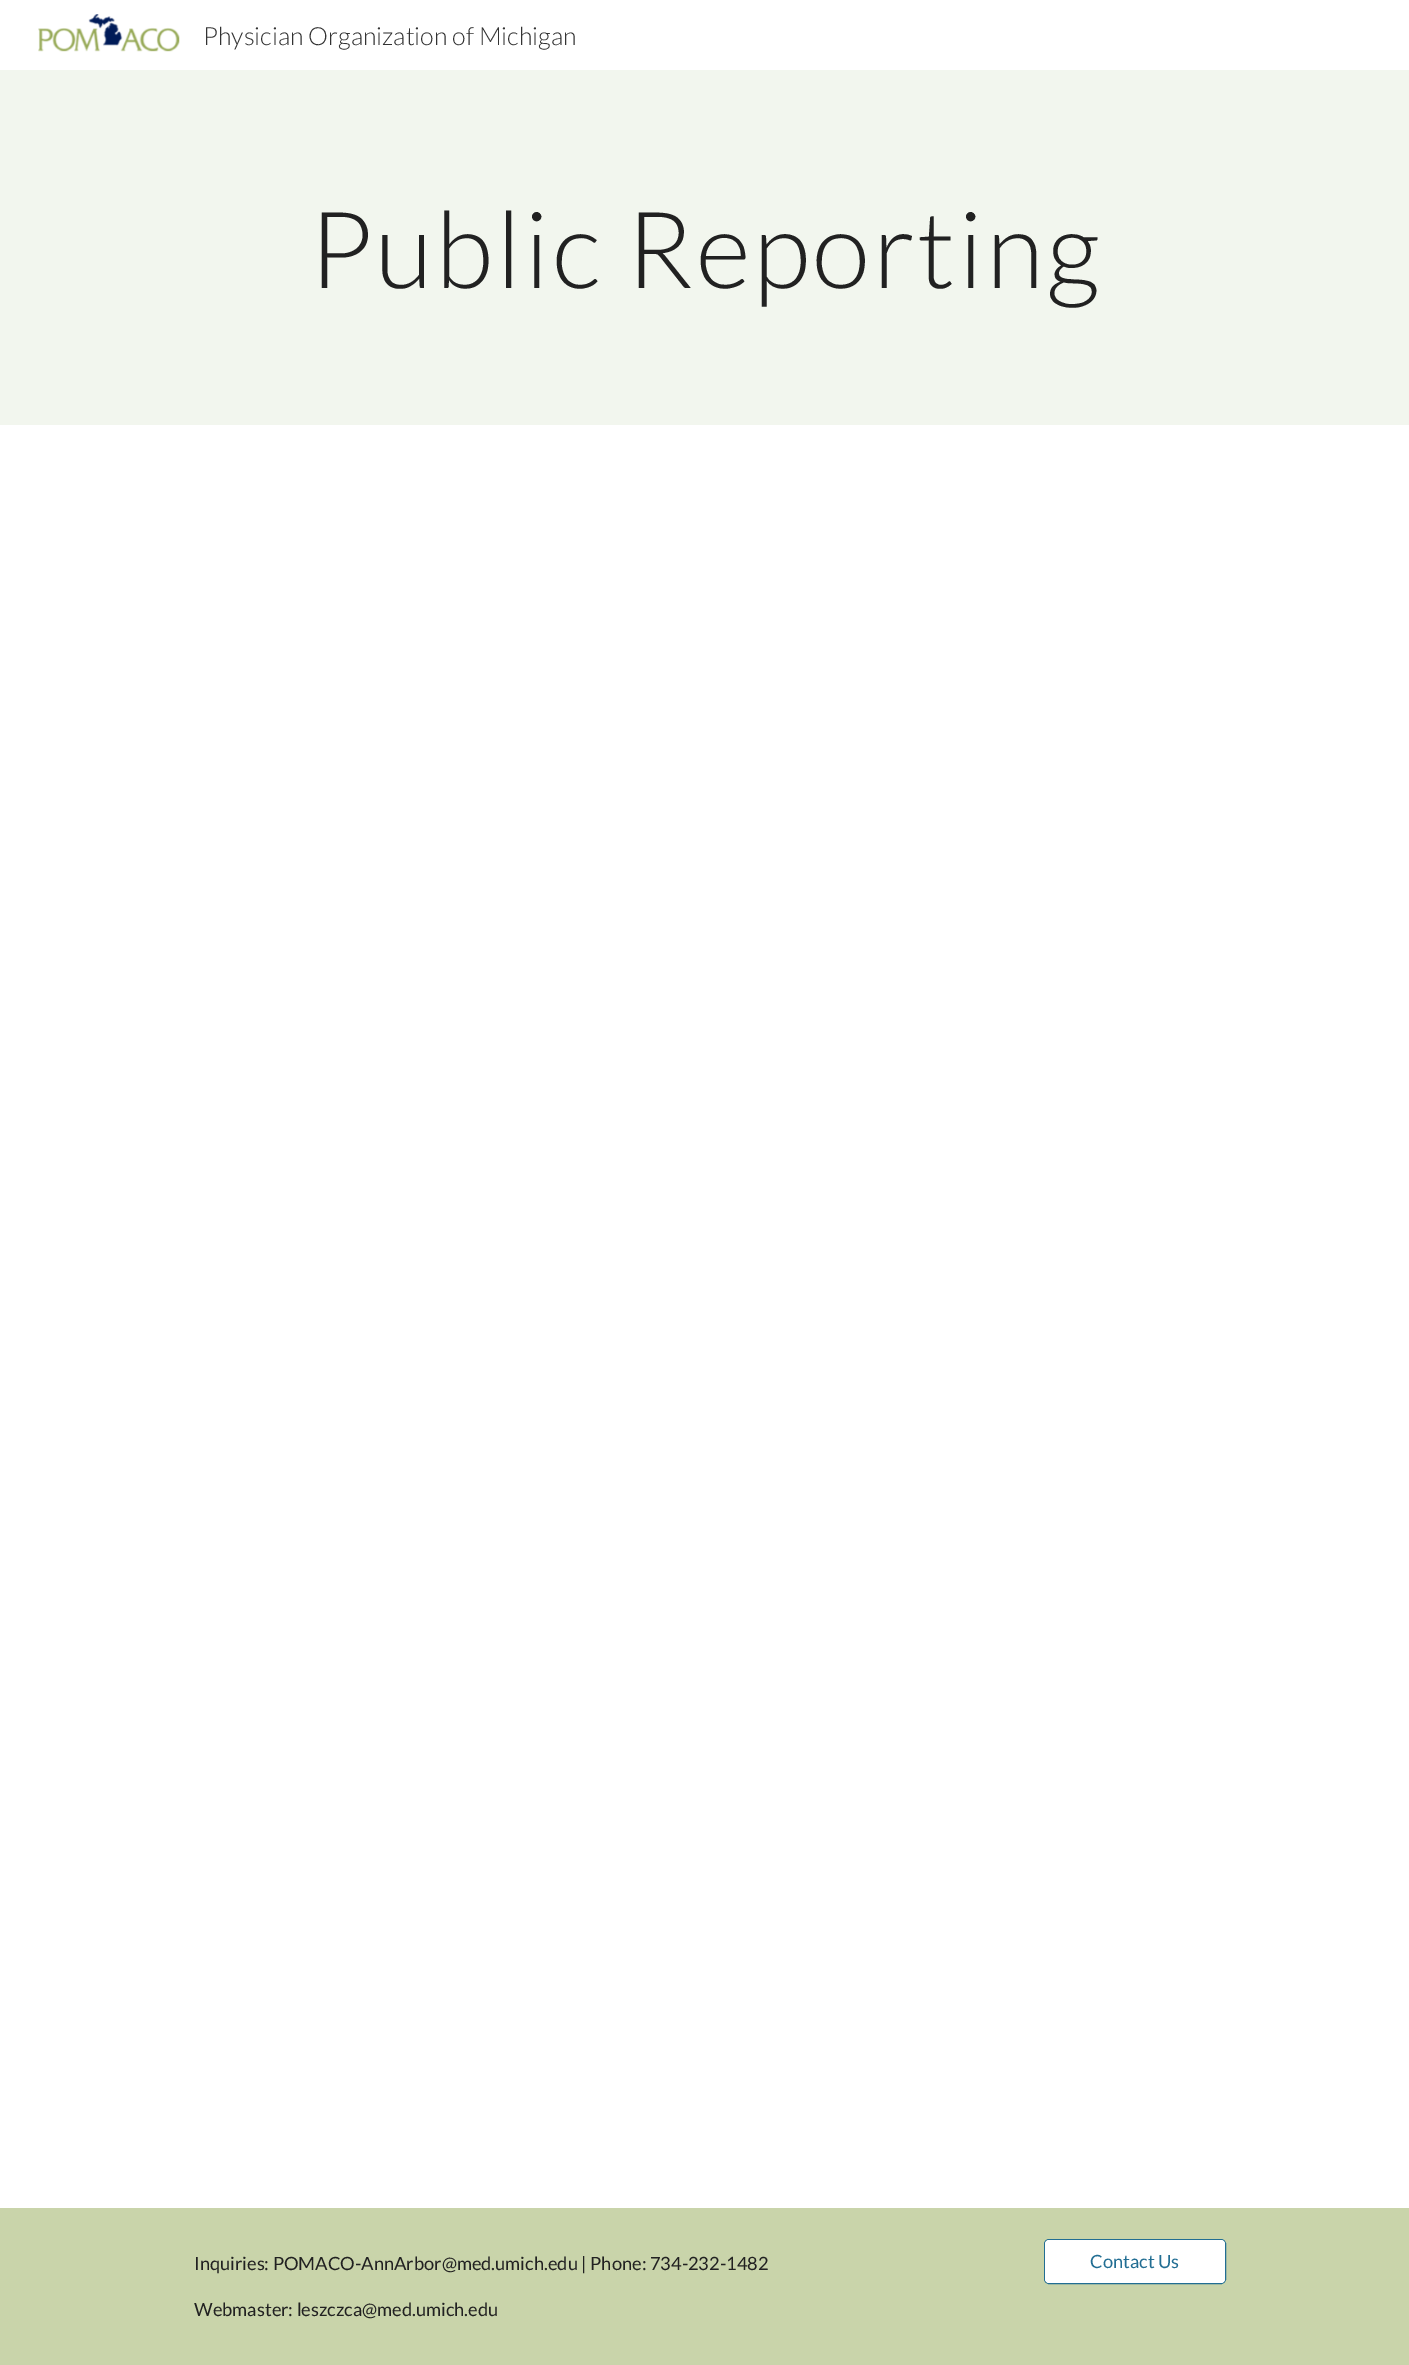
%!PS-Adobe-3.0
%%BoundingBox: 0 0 1409 2365
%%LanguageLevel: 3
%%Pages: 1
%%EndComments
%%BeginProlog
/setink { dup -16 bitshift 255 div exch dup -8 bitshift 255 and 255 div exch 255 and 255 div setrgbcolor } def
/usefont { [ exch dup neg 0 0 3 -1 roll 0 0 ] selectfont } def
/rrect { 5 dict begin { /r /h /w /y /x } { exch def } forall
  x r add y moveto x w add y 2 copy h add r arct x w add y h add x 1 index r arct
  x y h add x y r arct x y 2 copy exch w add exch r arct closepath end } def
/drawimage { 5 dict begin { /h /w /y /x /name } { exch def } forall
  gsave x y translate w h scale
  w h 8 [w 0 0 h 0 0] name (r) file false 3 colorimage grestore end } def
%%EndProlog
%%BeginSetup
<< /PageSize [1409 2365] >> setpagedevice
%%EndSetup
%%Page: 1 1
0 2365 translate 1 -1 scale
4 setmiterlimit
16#FFFFFF setink
0 0 1409 2365 rectfill
(img1.raw) 38 14 142 38 drawimage
/Lato-Light 25 usefont
16#333333 setink
203 45 moveto (Physician Organization of Michigan) show
16#F2F6EE setink
0 70 1409 355 rectfill
/Lato-Light 106.75 usefont
16#212121 setink
309 288 moveto 2.5 0 (Public Reporting) ashow
16#C9D4AA setink
0 2208 1409 157 rectfill
/Lato-Regular 18.3 usefont
16#212121 setink
194 2270 moveto (Inquiries: POMACO-AnnArbor@med.umich.edu | Phone: 734-232-1482) show
194 2316 moveto (Webmaster: leszczca@med.umich.edu) show
16#226E93 setink
1044.5 2239.5 181 44 4.5 rrect stroke
16#FFFFFF setink
1045 2240 180 43 4 rrect fill
16#226E93 setink
1090 2268 moveto (Contact Us) show
showpage
%%EOF
